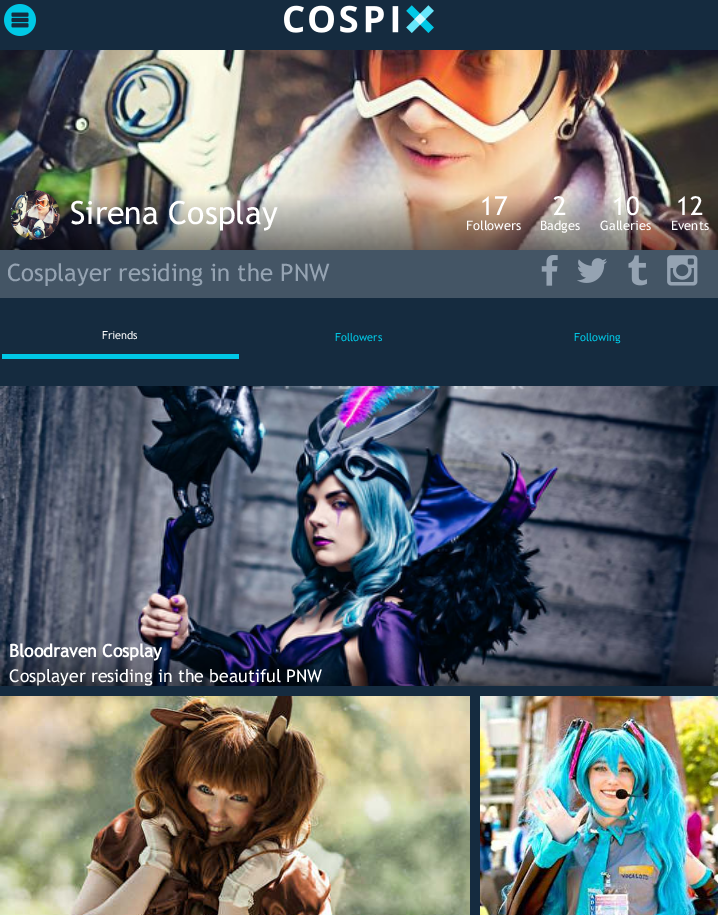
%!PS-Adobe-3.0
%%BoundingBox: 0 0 718 915
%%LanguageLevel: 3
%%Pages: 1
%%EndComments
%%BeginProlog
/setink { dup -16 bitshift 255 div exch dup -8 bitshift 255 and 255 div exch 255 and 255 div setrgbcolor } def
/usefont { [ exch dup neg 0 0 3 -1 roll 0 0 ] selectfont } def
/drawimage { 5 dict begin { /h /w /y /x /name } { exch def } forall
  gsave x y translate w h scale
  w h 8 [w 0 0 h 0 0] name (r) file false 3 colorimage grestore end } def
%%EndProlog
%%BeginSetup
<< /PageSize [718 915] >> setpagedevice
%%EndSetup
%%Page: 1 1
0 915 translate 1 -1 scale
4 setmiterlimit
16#152B3F setink
0 0 718 915 rectfill
(img1.raw) 4 4 32 32 drawimage
(img2.raw) 284 5 150 28 drawimage
(img3.raw) 0 50 718 200 drawimage
(img4.raw) 10 190 50 50 drawimage
/TrebuchetMS-Regular 32 usefont
16#FFFFFF setink
70 224 moveto (Sirena Cosplay) show
/TrebuchetMS-Regular 26 usefont
480 215 moveto (17) show
/TrebuchetMS-Regular 13 usefont
466 230 moveto (Followers) show
/TrebuchetMS-Regular 26 usefont
553 215 moveto (2) show
/TrebuchetMS-Regular 13 usefont
540 230 moveto (Badges) show
/TrebuchetMS-Regular 26 usefont
612 215 moveto (10) show
/TrebuchetMS-Regular 13 usefont
600 230 moveto (Galleries) show
/TrebuchetMS-Regular 26 usefont
676 215 moveto (12) show
/TrebuchetMS-Regular 13 usefont
671 230 moveto (Events) show
16#445565 setink
0 250 718 48 rectfill
/TrebuchetMS-Regular 24 usefont
16#95A3B2 setink
7 281 moveto (Cosplayer residing in the PNW) show
(img5.raw) 541 255 17 31 drawimage
(img6.raw) 577 258 30 25 drawimage
(img7.raw) 628 255 19 31 drawimage
(img8.raw) 667 255 31 31 drawimage
16#00C8E6 setink
2 354 237 5 rectfill
/TrebuchetMS-Regular 11 usefont
16#FFFFFF setink
102 339 moveto (Friends) show
16#00C8E6 setink
335 341 moveto (Followers) show
574 341 moveto (Following) show
(img9.raw) 0 386 718 300 drawimage
/TrebuchetMS-Bold 17.6 usefont
16#FFFFFF setink
9 657 moveto (Bloodraven Cosplay) show
/TrebuchetMS-Regular 17.6 usefont
9 682 moveto (Cosplayer residing in the beautiful PNW) show
(img10.raw) 0 696 470 219 drawimage
(img11.raw) 480 696 238 219 drawimage
showpage
%%EOF
